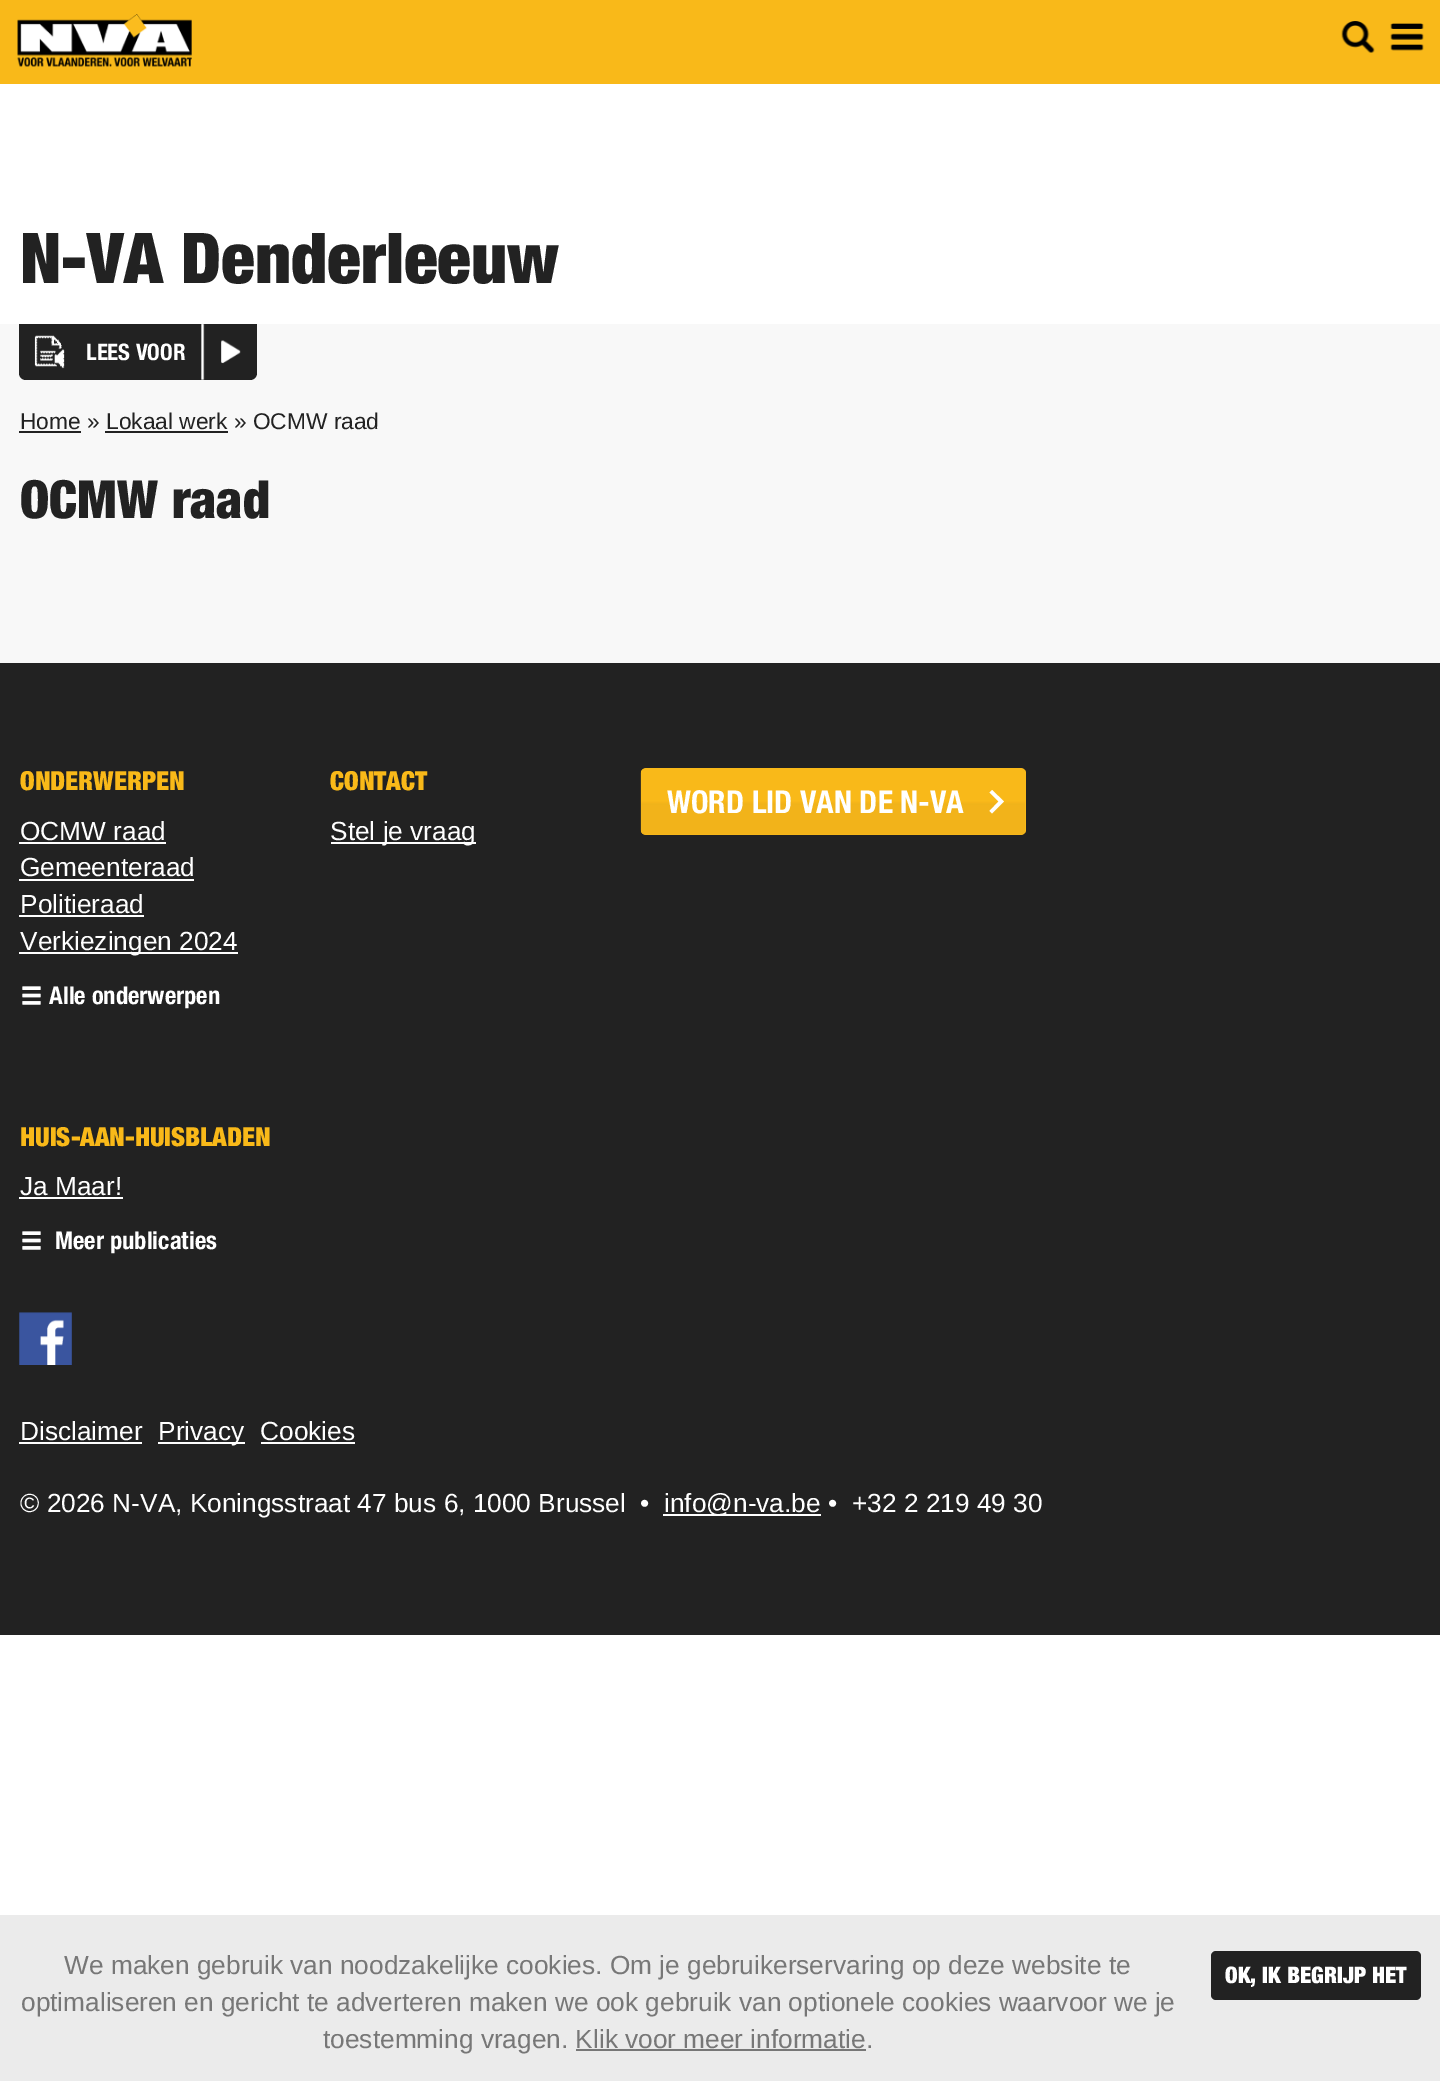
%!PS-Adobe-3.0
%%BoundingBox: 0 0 1440 2081
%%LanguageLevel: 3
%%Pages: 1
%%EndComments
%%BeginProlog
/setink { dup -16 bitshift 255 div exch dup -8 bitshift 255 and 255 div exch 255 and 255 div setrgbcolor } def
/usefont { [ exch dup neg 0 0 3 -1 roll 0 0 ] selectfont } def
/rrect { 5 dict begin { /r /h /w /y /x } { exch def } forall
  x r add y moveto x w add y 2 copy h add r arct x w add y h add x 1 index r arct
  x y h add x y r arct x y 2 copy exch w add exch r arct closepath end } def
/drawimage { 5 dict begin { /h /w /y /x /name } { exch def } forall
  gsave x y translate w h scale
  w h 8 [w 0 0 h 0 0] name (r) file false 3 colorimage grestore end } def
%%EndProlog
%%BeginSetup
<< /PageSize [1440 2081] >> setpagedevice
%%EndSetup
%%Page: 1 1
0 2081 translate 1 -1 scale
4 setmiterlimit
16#FFFFFF setink
0 0 1440 2081 rectfill
16#F9B919 setink
0 0 1440 84 rectfill
(img1.raw) 17 14 175 53 drawimage
(img2.raw) 1341 21 34 32 drawimage
(img3.raw) 1390 23 34 28 drawimage
/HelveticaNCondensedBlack-Black 70 usefont
16#222222 setink
20 283 moveto (N-VA Denderleeuw) show
16#F8F8F8 setink
0 324 1440 339 rectfill
16#222222 setink
19 324 moveto 257 324 lineto 257 373 lineto 257 377 254 380 250 380 curveto 26 380 lineto 22 380 19 377 19 373 curveto closepath fill
(img4.raw) 201 324 40 56 drawimage
(img5.raw) 34 335 31 34 drawimage
/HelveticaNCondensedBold-Regular 22.75 usefont
16#FFFFFF setink
86 360 moveto (LEES VOOR) show
/LiberationSans-Regular 22.75 usefont
16#222222 setink
20 429 moveto (Home » Lokaal werk » OCMW raad) show
19 431 62 2 rectfill
105 431 123 2 rectfill
/HelveticaNCondensedBlack-Black 52.5 usefont
20 518 moveto (OCMW raad) show
0 663 1440 972 rectfill
/HelveticaNCondensedBlack-Black 26.25 usefont
16#F9B919 setink
20 790 moveto (ONDERWERPEN) show
/LiberationSans-Regular 26.25 usefont
16#FFFFFF setink
20 840 moveto (OCMW raad) show
19 842 147 2 rectfill
20 876 moveto (Gemeenteraad) show
19 879 175 2 rectfill
20 913 moveto (Politieraad) show
19 915 125 2 rectfill
19 952 219 2 rectfill
20 950 moveto (Verkiezingen 2024) show
(img6.raw) 22 986 19 19 drawimage
/HelveticaNCondensedBold-Regular 24.5 usefont
49 1004 moveto (Alle onderwerpen) show
/HelveticaNCondensedBlack-Black 26.25 usefont
16#F9B919 setink
20 1146 moveto (HUIS-AAN-HUISBLADEN) show
/LiberationSans-Regular 26.25 usefont
16#FFFFFF setink
20 1195 moveto (Ja Maar!) show
19 1197 104 2 rectfill
(img6.raw) 22 1231 19 19 drawimage
/HelveticaNCondensedBold-Regular 24.5 usefont
55 1249 moveto (Meer publicaties) show
/HelveticaNCondensedBlack-Black 26.25 usefont
16#F9B919 setink
330 790 moveto (CONTACT) show
16#FFFFFF setink
331 842 145 2 rectfill
/LiberationSans-Regular 26.25 usefont
330 840 moveto (Stel je vraag) show
16#F9B919 setink
641 768 385 67 5 rrect fill
(img7.raw) 640 768 385 67 drawimage
/HelveticaNCondensedBold-Regular 31.5 usefont
16#FFFFFF setink
667 813 moveto (WORD LID VAN DE N-VA) show
989.5 792.5 moveto 998.5 801.5 lineto 989.5 811 lineto 992 813.5 lineto 1004 801.5 lineto 992 790 lineto closepath fill
(img8.raw) 19 1312 53 53 drawimage
/LiberationSans-Regular 26.25 usefont
20 1440 moveto (Disclaimer) show
19 1442 123 2 rectfill
158 1442 87 2 rectfill
158 1440 moveto (Privacy) show
260 1440 moveto (Cookies) show
261 1442 94 2 rectfill
20 1512 moveto (© 2026 N-VA, Koningsstraat 47 bus 6, 1000 Brussel  •) show
663 1514 158 2 rectfill
664 1512 moveto (info@n-va.be •) show
852 1512 moveto (+32 2 219 49 30) show
16#EBEBEB setink
0 1915 1440 166 rectfill
16#777777 setink
[
    [(We maken gebruik van noodzakelijke cookies. Om je gebruikerservaring op deze website te) 64 1974]
    [(optimaliseren en gericht te adverteren maken we ook gebruik van optionele cookies waarvoor we je) 21 2011]
    [(toestemming vragen. Klik voor meer informatie.) 323 2048]
] { aload pop moveto show } forall
576 2049 290 2 rectfill
16#222222 setink
1211 1951 210 49 5 rrect fill
/HelveticaNCondensedBlack-Black 22.75 usefont
16#FFFFFF setink
1225 1983 moveto (OK, IK BEGRIJP HET) show
showpage
%%EOF
